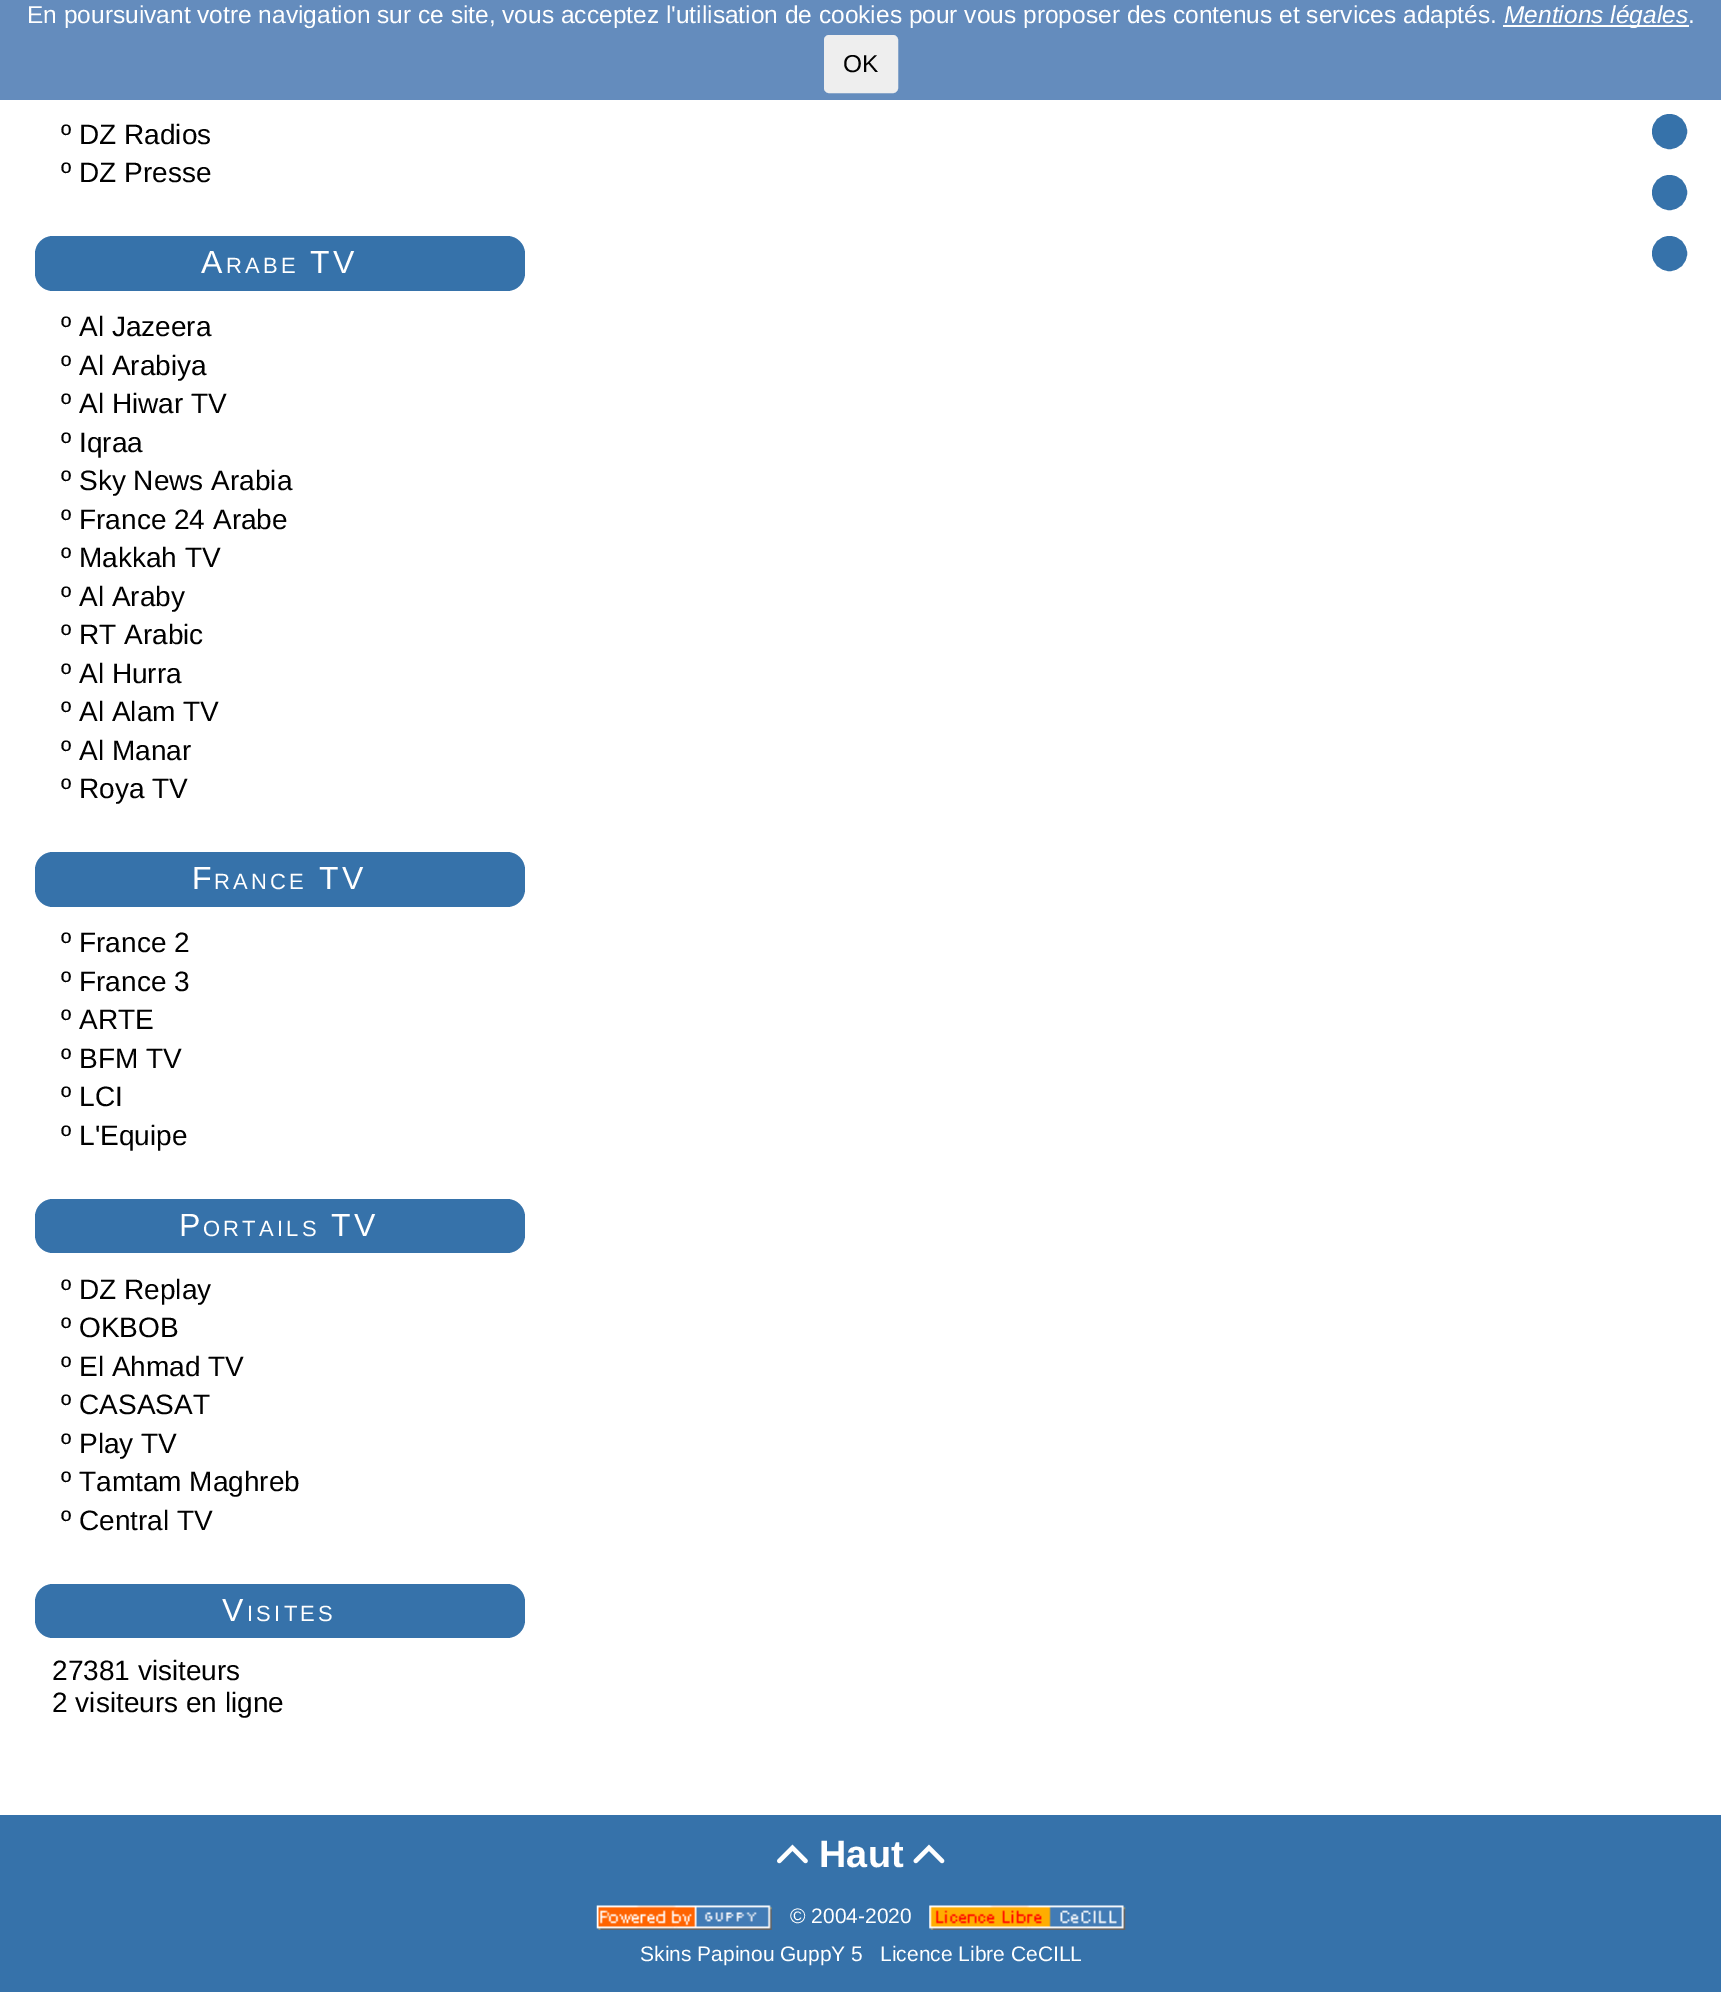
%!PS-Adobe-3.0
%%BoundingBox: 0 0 1721 1992
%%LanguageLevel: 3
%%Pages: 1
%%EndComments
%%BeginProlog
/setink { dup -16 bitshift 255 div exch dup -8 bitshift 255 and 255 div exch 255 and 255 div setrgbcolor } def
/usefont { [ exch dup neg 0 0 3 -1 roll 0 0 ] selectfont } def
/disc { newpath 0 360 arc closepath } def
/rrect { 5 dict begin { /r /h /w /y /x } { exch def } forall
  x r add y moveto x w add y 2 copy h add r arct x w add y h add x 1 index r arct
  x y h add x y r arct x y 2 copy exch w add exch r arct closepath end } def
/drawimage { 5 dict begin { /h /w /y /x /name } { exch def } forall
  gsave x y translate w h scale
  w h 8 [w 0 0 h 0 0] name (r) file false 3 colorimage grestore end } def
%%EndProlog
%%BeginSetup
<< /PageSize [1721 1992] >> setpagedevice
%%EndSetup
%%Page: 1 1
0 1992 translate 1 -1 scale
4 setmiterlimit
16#FFFFFF setink
0 0 1721 1992 rectfill
16#648CBD setink
0 0 1721 100 rectfill
/LiberationSans-Regular 24.5 usefont
16#FFFFFF setink
27 23 moveto (En poursuivant votre navigation sur ce site, vous acceptez l'utilisation de cookies pour vous proposer des contenus et services adaptés.) show
1503 25 186 2 rectfill
/LiberationSans-Italic 24.5 usefont
1504 23 moveto (Mentions légales) show
/LiberationSans-Regular 24.5 usefont
1688 23 moveto (.) show
16#EEEEEE setink
825 36 72 56 4 rrect gsave fill grestore
2 setlinewidth
stroke
16#000000 setink
843 72 moveto (OK) show
/LiberationSans-Regular 28 usefont
61 144 moveto (º DZ Radios) show
61 182 moveto (º DZ Presse) show
16#3672AA setink
35 236 490 55 18 rrect fill
/LiberationSans-Regular 32 usefont
16#FFFFFF setink
201 273 moveto 3.25 0 (A) ashow
/LiberationSans-Regular 22 usefont
226 273 moveto 3.25 0 (RABE) ashow
/LiberationSans-Regular 32 usefont
310 273 moveto 3.25 0 (TV) ashow
/LiberationSans-Regular 28 usefont
16#000000 setink
[
    [(º Al Jazeera) 61 336]
    [(º Al Arabiya) 61 375]
    [(º Al Hiwar TV) 61 413]
    [(º Iqraa) 61 452]
    [(º Sky News Arabia) 61 490]
    [(º France 24 Arabe) 61 529]
    [(º Makkah TV) 61 567]
    [(º Al Araby) 61 606]
    [(º RT Arabic) 61 644]
    [(º Al Hurra) 61 683]
    [(º Al Alam TV) 61 721]
    [(º Al Manar) 61 760]
    [(º Roya TV) 61 798]
] { aload pop moveto show } forall
16#3672AA setink
35 852 490 55 18 rrect fill
/LiberationSans-Regular 32 usefont
16#FFFFFF setink
192 889 moveto 3.25 0 (F) ashow
/LiberationSans-Regular 22 usefont
214 889 moveto 3.25 0 (RANCE) ashow
/LiberationSans-Regular 32 usefont
319 889 moveto 3.25 0 (TV) ashow
/LiberationSans-Regular 28 usefont
16#000000 setink
[
    [(º France 2) 61 952]
    [(º France 3) 61 991]
    [(º ARTE) 61 1029]
    [(º BFM TV) 61 1068]
    [(º LCI) 61 1106]
    [(º L'Equipe) 61 1145]
] { aload pop moveto show } forall
16#3672AA setink
35 1199 490 54 18 rrect fill
/LiberationSans-Regular 32 usefont
16#FFFFFF setink
179 1236 moveto 3.25 0 (P) ashow
/LiberationSans-Regular 22 usefont
203 1236 moveto 3.25 0 (ORTAILS) ashow
/LiberationSans-Regular 32 usefont
331 1236 moveto 3.25 0 (TV) ashow
/LiberationSans-Regular 28 usefont
16#000000 setink
[
    [(º DZ Replay) 61 1299]
    [(º OKBOB) 61 1337]
    [(º El Ahmad TV) 61 1376]
    [(º CASASAT) 61 1414]
    [(º Play TV) 61 1453]
    [(º Tamtam Maghreb) 61 1491]
    [(º Central TV) 61 1530]
] { aload pop moveto show } forall
16#3672AA setink
35 1584 490 54 18 rrect fill
/LiberationSans-Regular 32 usefont
16#FFFFFF setink
222 1621 moveto 3.25 0 (V) ashow
/LiberationSans-Regular 22 usefont
247 1621 moveto 3.25 0 (ISITES) ashow
/LiberationSans-Regular 28 usefont
16#000000 setink
52 1680 moveto (27381 visiteurs) show
52 1712 moveto (2 visiteurs en ligne) show
16#3672AA setink
1669.5 131.5 15.5 disc gsave fill grestore
4 setlinewidth
stroke
1669.5 192.5 15.5 disc gsave fill grestore
stroke
1669.5 253.5 15.5 disc gsave fill grestore
stroke
0 1815 1721 177 rectfill
(img1.raw) 777 1844 31 20 drawimage
/LiberationSans-Bold 38 usefont
16#FFFFFF setink
819 1867 moveto (Haut) show
(img2.raw) 913 1844 32 20 drawimage
(img3.raw) 596 1905 176 25 drawimage
/LiberationSans-Regular 21 usefont
790 1923 moveto (© 2004-2020) show
(img4.raw) 929 1905 197 25 drawimage
640 1961 moveto (Skins Papinou GuppY 5) show
880 1961 moveto (Licence Libre CeCILL) show
showpage
%%EOF
